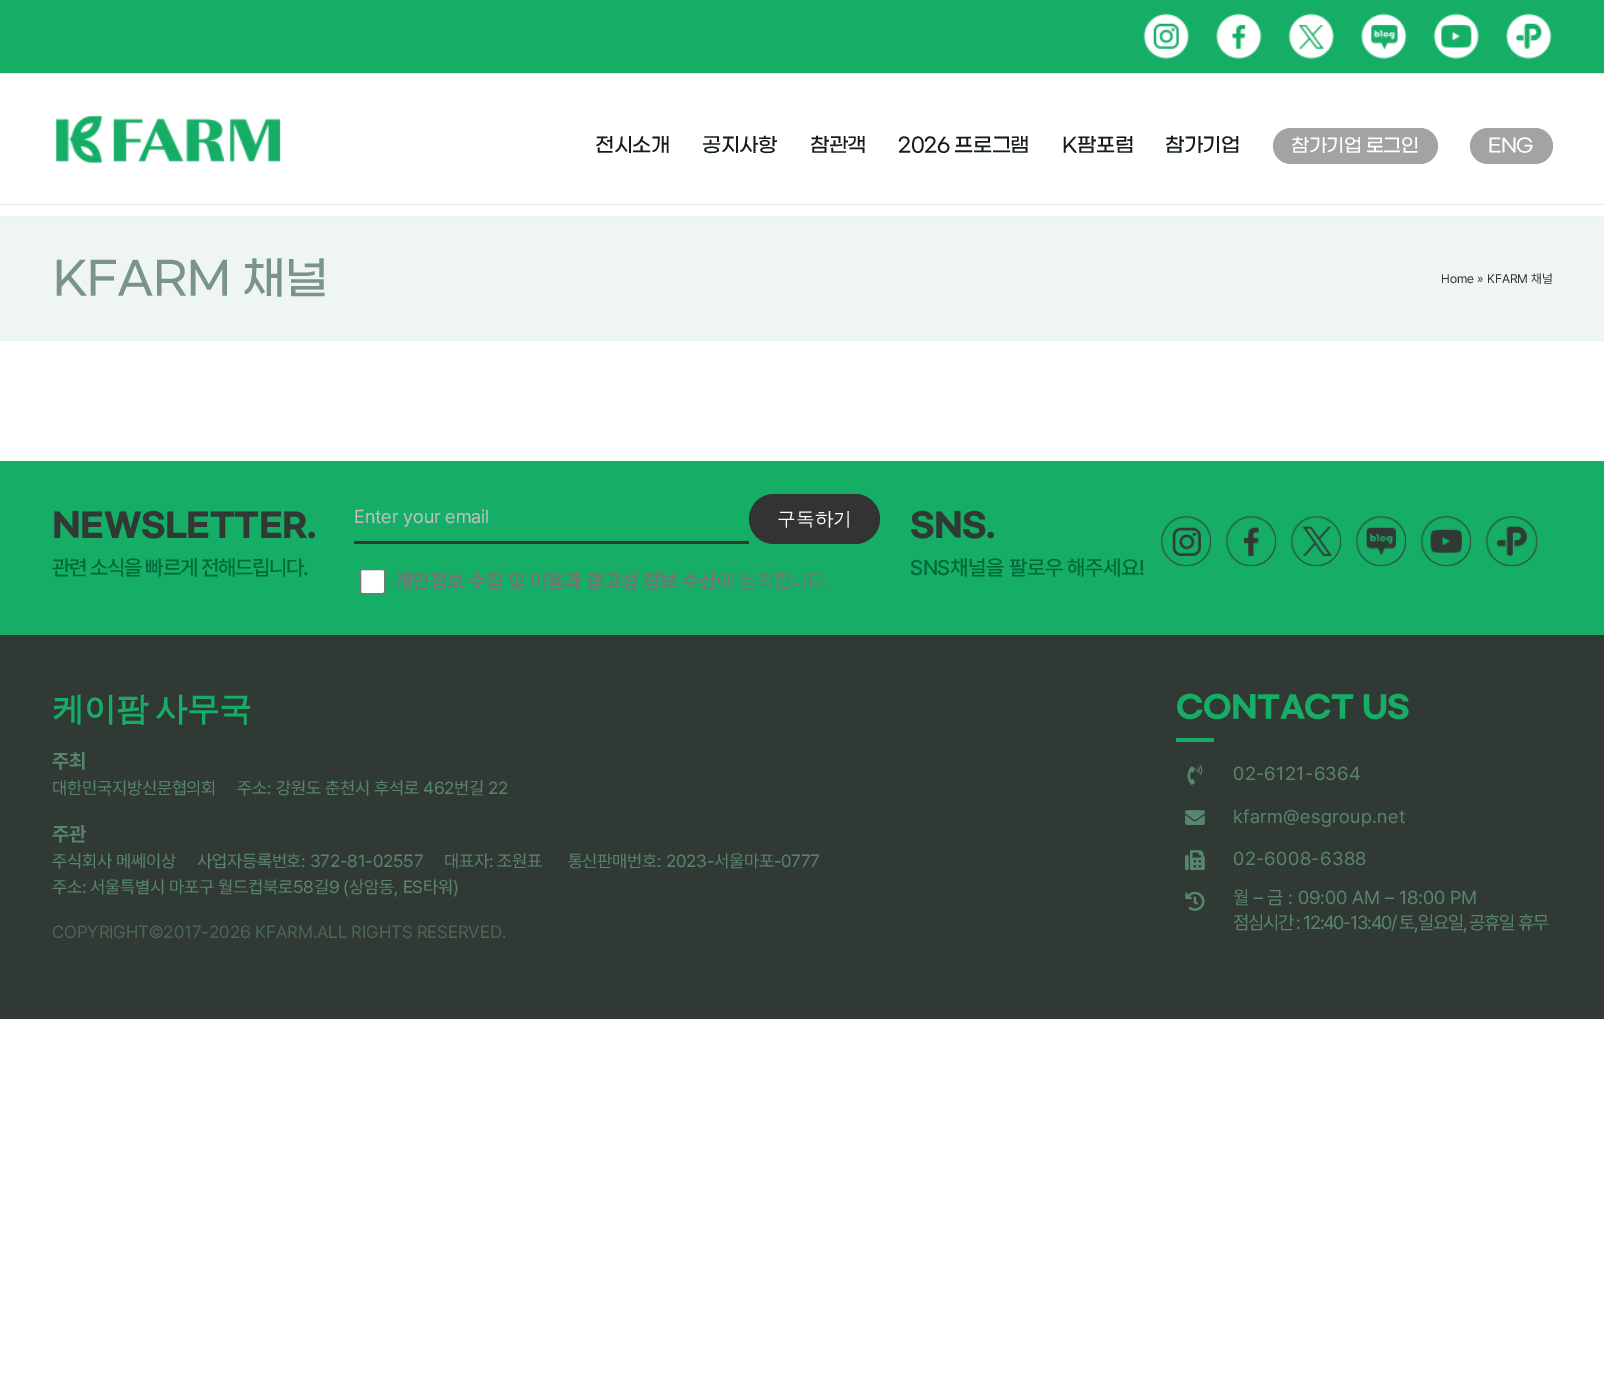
%!PS-Adobe-3.0
%%BoundingBox: 0 0 1604 1395
%%LanguageLevel: 3
%%Pages: 1
%%EndComments
%%BeginProlog
/setink { dup -16 bitshift 255 div exch dup -8 bitshift 255 and 255 div exch 255 and 255 div setrgbcolor } def
/usefont { [ exch dup neg 0 0 3 -1 roll 0 0 ] selectfont } def
/rrect { 5 dict begin { /r /h /w /y /x } { exch def } forall
  x r add y moveto x w add y 2 copy h add r arct x w add y h add x 1 index r arct
  x y h add x y r arct x y 2 copy exch w add exch r arct closepath end } def
/drawimage { 5 dict begin { /h /w /y /x /name } { exch def } forall
  gsave x y translate w h scale
  w h 8 [w 0 0 h 0 0] name (r) file false 3 colorimage grestore end } def
%%EndProlog
%%BeginSetup
<< /PageSize [1604 1395] >> setpagedevice
%%EndSetup
%%Page: 1 1
0 1395 translate 1 -1 scale
4 setmiterlimit
16#FFFFFF setink
0 0 1604 1395 rectfill
16#16AE67 setink
0 0 1604 73 rectfill
16#EAEAEA setink
0 73 1604 1 rectfill
(img1.raw) 1143 13 46 46 drawimage
(img2.raw) 1216 13 46 46 drawimage
(img3.raw) 1288 13 46 46 drawimage
(img4.raw) 1361 13 46 46 drawimage
(img5.raw) 1433 13 46 46 drawimage
(img6.raw) 1506 13 46 46 drawimage
0 204 1604 1 rectfill
(img7.raw) 55 115 226 49 drawimage
/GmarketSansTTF-Medium 20 usefont
16#131E19 setink
595 151 moveto -0.5 0 (전시소개) ashow
702 151 moveto -0.5 0 (공지사항) ashow
810 151 moveto -0.5 0 (참관객) ashow
898 151 moveto -0.5 0 (2026 프로그램) ashow
1062 151 moveto -0.5 0 (K팜포럼) ashow
1165 151 moveto -0.5 0 (참가기업) ashow
16#A3A3A3 setink
1273 128 165 36 18 rrect fill
/GmarketSansTTF-Medium 18.75 usefont
16#FFFFFF setink
1291 151 moveto -0.5 0 (참가기업 로그인) ashow
16#A3A3A3 setink
1470 128 83 36 18 rrect fill
16#FFFFFF setink
1488 151 moveto -0.5 0 (ENG) ashow
[
    [0 217 1604 123 16#EEF5F2]
    [0 216 1604 1 16#E8F2EE]
    [0 340 1604 1 16#E8F2EE]
] { aload pop setink rectfill } forall
/GmarketSansTTF-Medium 45 usefont
16#7A9488 setink
53 292 moveto -0.5 0 (KFARM 채널) ashow
/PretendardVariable-Regular 12.5 usefont
16#333333 setink
1441 283 moveto (Home » KFARM 채널) show
16#16AE67 setink
0 461 1604 174 rectfill
/GmarketSansTTF-Bold 32.5 usefont
16#313935 setink
52 535 moveto -0.5 0 (NEWSLETTER.) ashow
/PretendardVariable-Medium 21.25 usefont
16#006938 setink
52 575 moveto -1.25 0 (관련 소식을 빠르게 전해드립니다.) ashow
16#313935 setink
354 541 395 3 rectfill
/PretendardVariable-Regular 18.75 usefont
16#C1C1C1 setink
354 523 moveto (Enter your email) show
16#333333 setink
749 494 131 50 25 rrect fill
/WenQuanYiZenHei-Medium 18.75 usefont
16#FFFFFF setink
777 525 moveto (구독하기) show
360.5 569.5 24 24 2 rrect gsave fill grestore
16#767676 setink
stroke
/PretendardVariable-Bold 20 usefont
16#747474 setink
395 588 moveto (개인정보 수집 및 이용과 광고성 정보 수신) show
/PretendardVariable-Regular 20 usefont
717 588 moveto (에 동의합니다.) show
/GmarketSansTTF-Bold 32.5 usefont
16#313935 setink
910 535 moveto -0.5 0 (SNS.) ashow
/PretendardVariable-Medium 21.25 usefont
16#006938 setink
910 575 moveto -0.4 0 (SNS채널을 팔로우 해주세요!) ashow
(img8.raw) 1161 516 51 51 drawimage
(img9.raw) 1226 516 51 51 drawimage
(img10.raw) 1291 516 51 51 drawimage
(img11.raw) 1356 516 51 51 drawimage
(img12.raw) 1421 516 51 51 drawimage
(img13.raw) 1486 516 52 51 drawimage
16#313935 setink
0 635 1604 384 rectfill
/WenQuanYiZenHei-Bold 32.5 usefont
16#16AE67 setink
52 720 moveto -2 0 32 -0.5 0 (케이팜 사무국) awidthshow
/PretendardVariable-Bold 20 usefont
16#58856F setink
52 768 moveto -0.18 0 (주최) ashow
/PretendardVariable-Regular 17.5 usefont
52 794 moveto -0.18 0 (대한민국지방신문협의회     주소: 강원도 춘천시 후석로 462번길 22) ashow
/PretendardVariable-Bold 20 usefont
52 841 moveto -0.18 0 (주관) ashow
/PretendardVariable-Regular 17.5 usefont
52 867 moveto -0.18 0 (주식회사 메쎄이상     사업자등록번호: 372-81-02557     대표자: 조원표      통신판매번호: 2023-서울마포-0777) ashow
52 893 moveto -0.18 0 (주소: 서울특별시 마포구 월드컵북로58길9 \(상암동, ES타워\)) ashow
16#486657 setink
52 938 moveto (COPYRIGHT©2017-2026 KFARM.ALL RIGHTS RESERVED.) show
/GmarketSansTTF-Bold 30 usefont
16#16AE67 setink
1176 716 moveto -0.5 0 (CONTACT US) ashow
1176 738 38 4 rectfill
(img14.raw) 1187 765 16 20 drawimage
/PretendardVariable-Regular 18.75 usefont
16#58856F setink
1233 780 moveto 0.4 0 (02-6121-6364) ashow
(img15.raw) 1185 810 20 15 drawimage
1233 823 moveto 0.4 0 (kfarm@esgroup.net) ashow
(img16.raw) 1185 850 20 20 drawimage
1233 865 moveto 0.4 0 (02-6008-6388) ashow
(img17.raw) 1185 891 20 20 drawimage
1233 904 moveto (월 – 금 : 09:00 AM – 18:00 PM) show
1233 929 moveto -1.3 0 (점심시간 : 12:40-13:40/ 토,일요일, 공휴일 휴무) ashow
showpage
%%EOF
